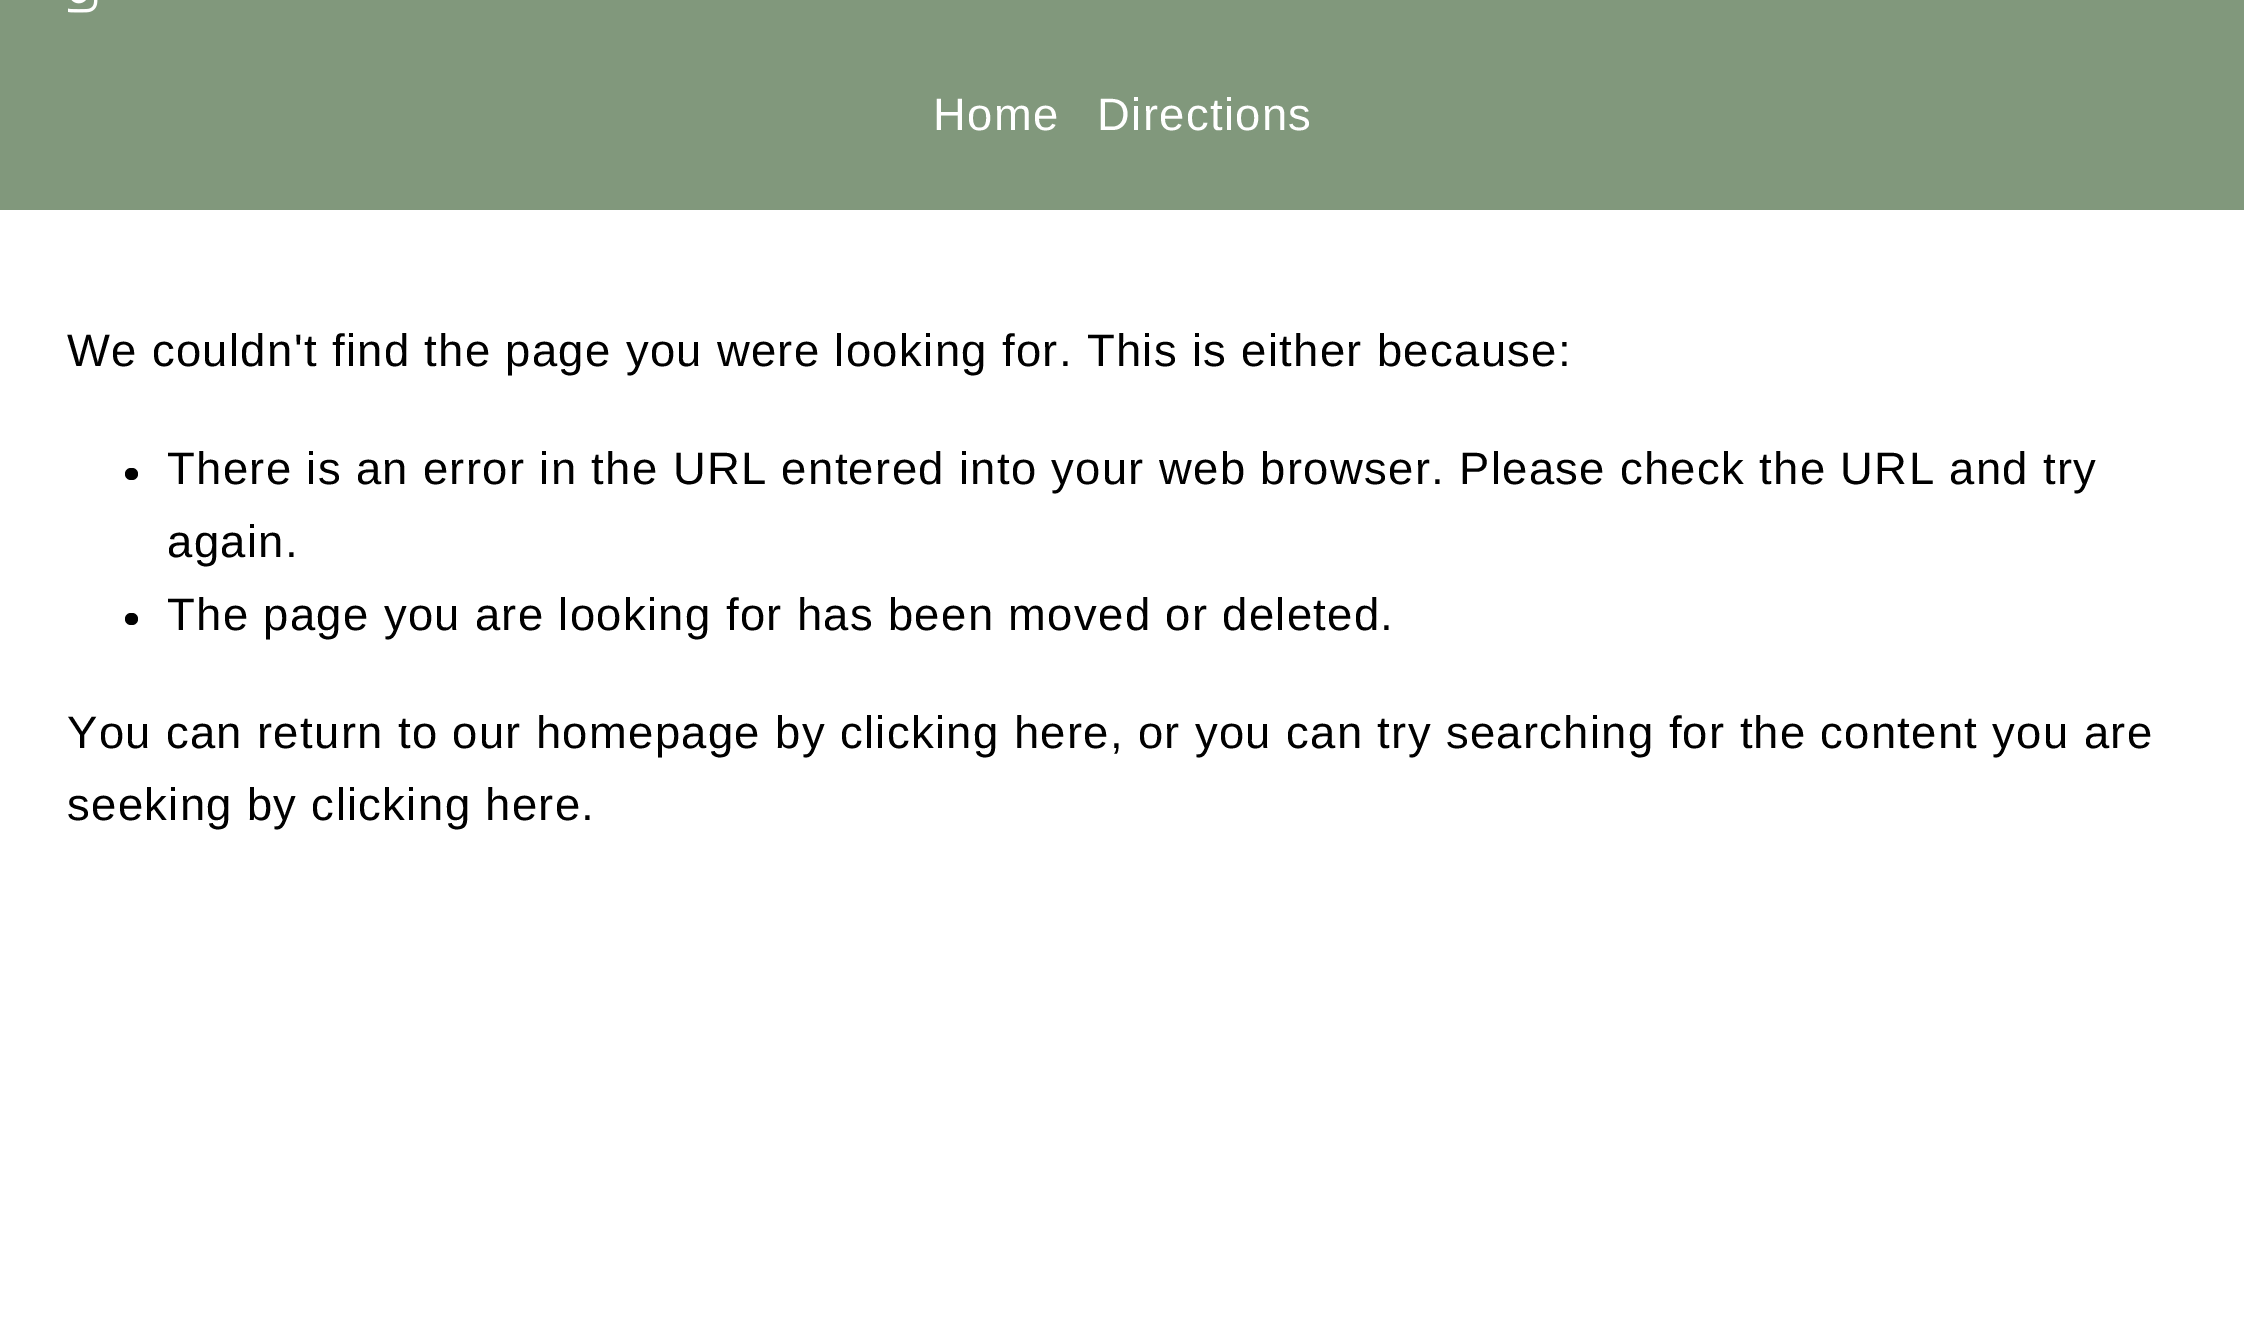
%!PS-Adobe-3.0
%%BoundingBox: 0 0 2244 1328
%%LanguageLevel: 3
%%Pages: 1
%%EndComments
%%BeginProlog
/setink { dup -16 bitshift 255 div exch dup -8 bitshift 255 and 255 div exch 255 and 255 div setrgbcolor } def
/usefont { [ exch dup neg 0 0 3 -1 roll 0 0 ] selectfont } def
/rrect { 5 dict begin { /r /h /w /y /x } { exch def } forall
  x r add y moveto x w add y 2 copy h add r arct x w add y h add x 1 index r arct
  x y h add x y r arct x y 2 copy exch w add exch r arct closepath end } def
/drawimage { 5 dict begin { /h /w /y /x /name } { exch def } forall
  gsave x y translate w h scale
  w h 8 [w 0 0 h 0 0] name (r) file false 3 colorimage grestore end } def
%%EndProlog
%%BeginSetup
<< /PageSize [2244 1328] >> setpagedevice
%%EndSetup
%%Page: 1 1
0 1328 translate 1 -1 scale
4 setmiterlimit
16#FFFFFF setink
0 0 2244 1328 rectfill
16#81987C setink
0 0 2244 210 rectfill
(img1.raw) 68 0 30 13 drawimage
/LiberationSans-Regular 45.4 usefont
16#FFFFFF setink
933 130 moveto 1.35 0 (Home) ashow
1097 130 moveto 1.35 0 (Directions) ashow
16#000000 setink
67 366 moveto 1.35 0 (We couldn't find the page you were looking for. This is either because:) ashow
125 468 13 12 6 rrect fill
167 484 moveto 1.35 0 (There is an error in the URL entered into your web browser. Please check the URL and try) ashow
167 557 moveto 1.35 0 (again.) ashow
125 613 13 12 6 rrect fill
167 630 moveto 1.35 0 (The page you are looking for has been moved or deleted.) ashow
67 748 moveto 1.35 0 (You can return to our homepage by) ashow
840 748 moveto 1.35 0 (clicking here, or you can try searching for the) ashow
1820 748 moveto 1.35 0 (content you are) ashow
67 820 moveto 1.35 0 (seeking by clicking here.) ashow
showpage
%%EOF
